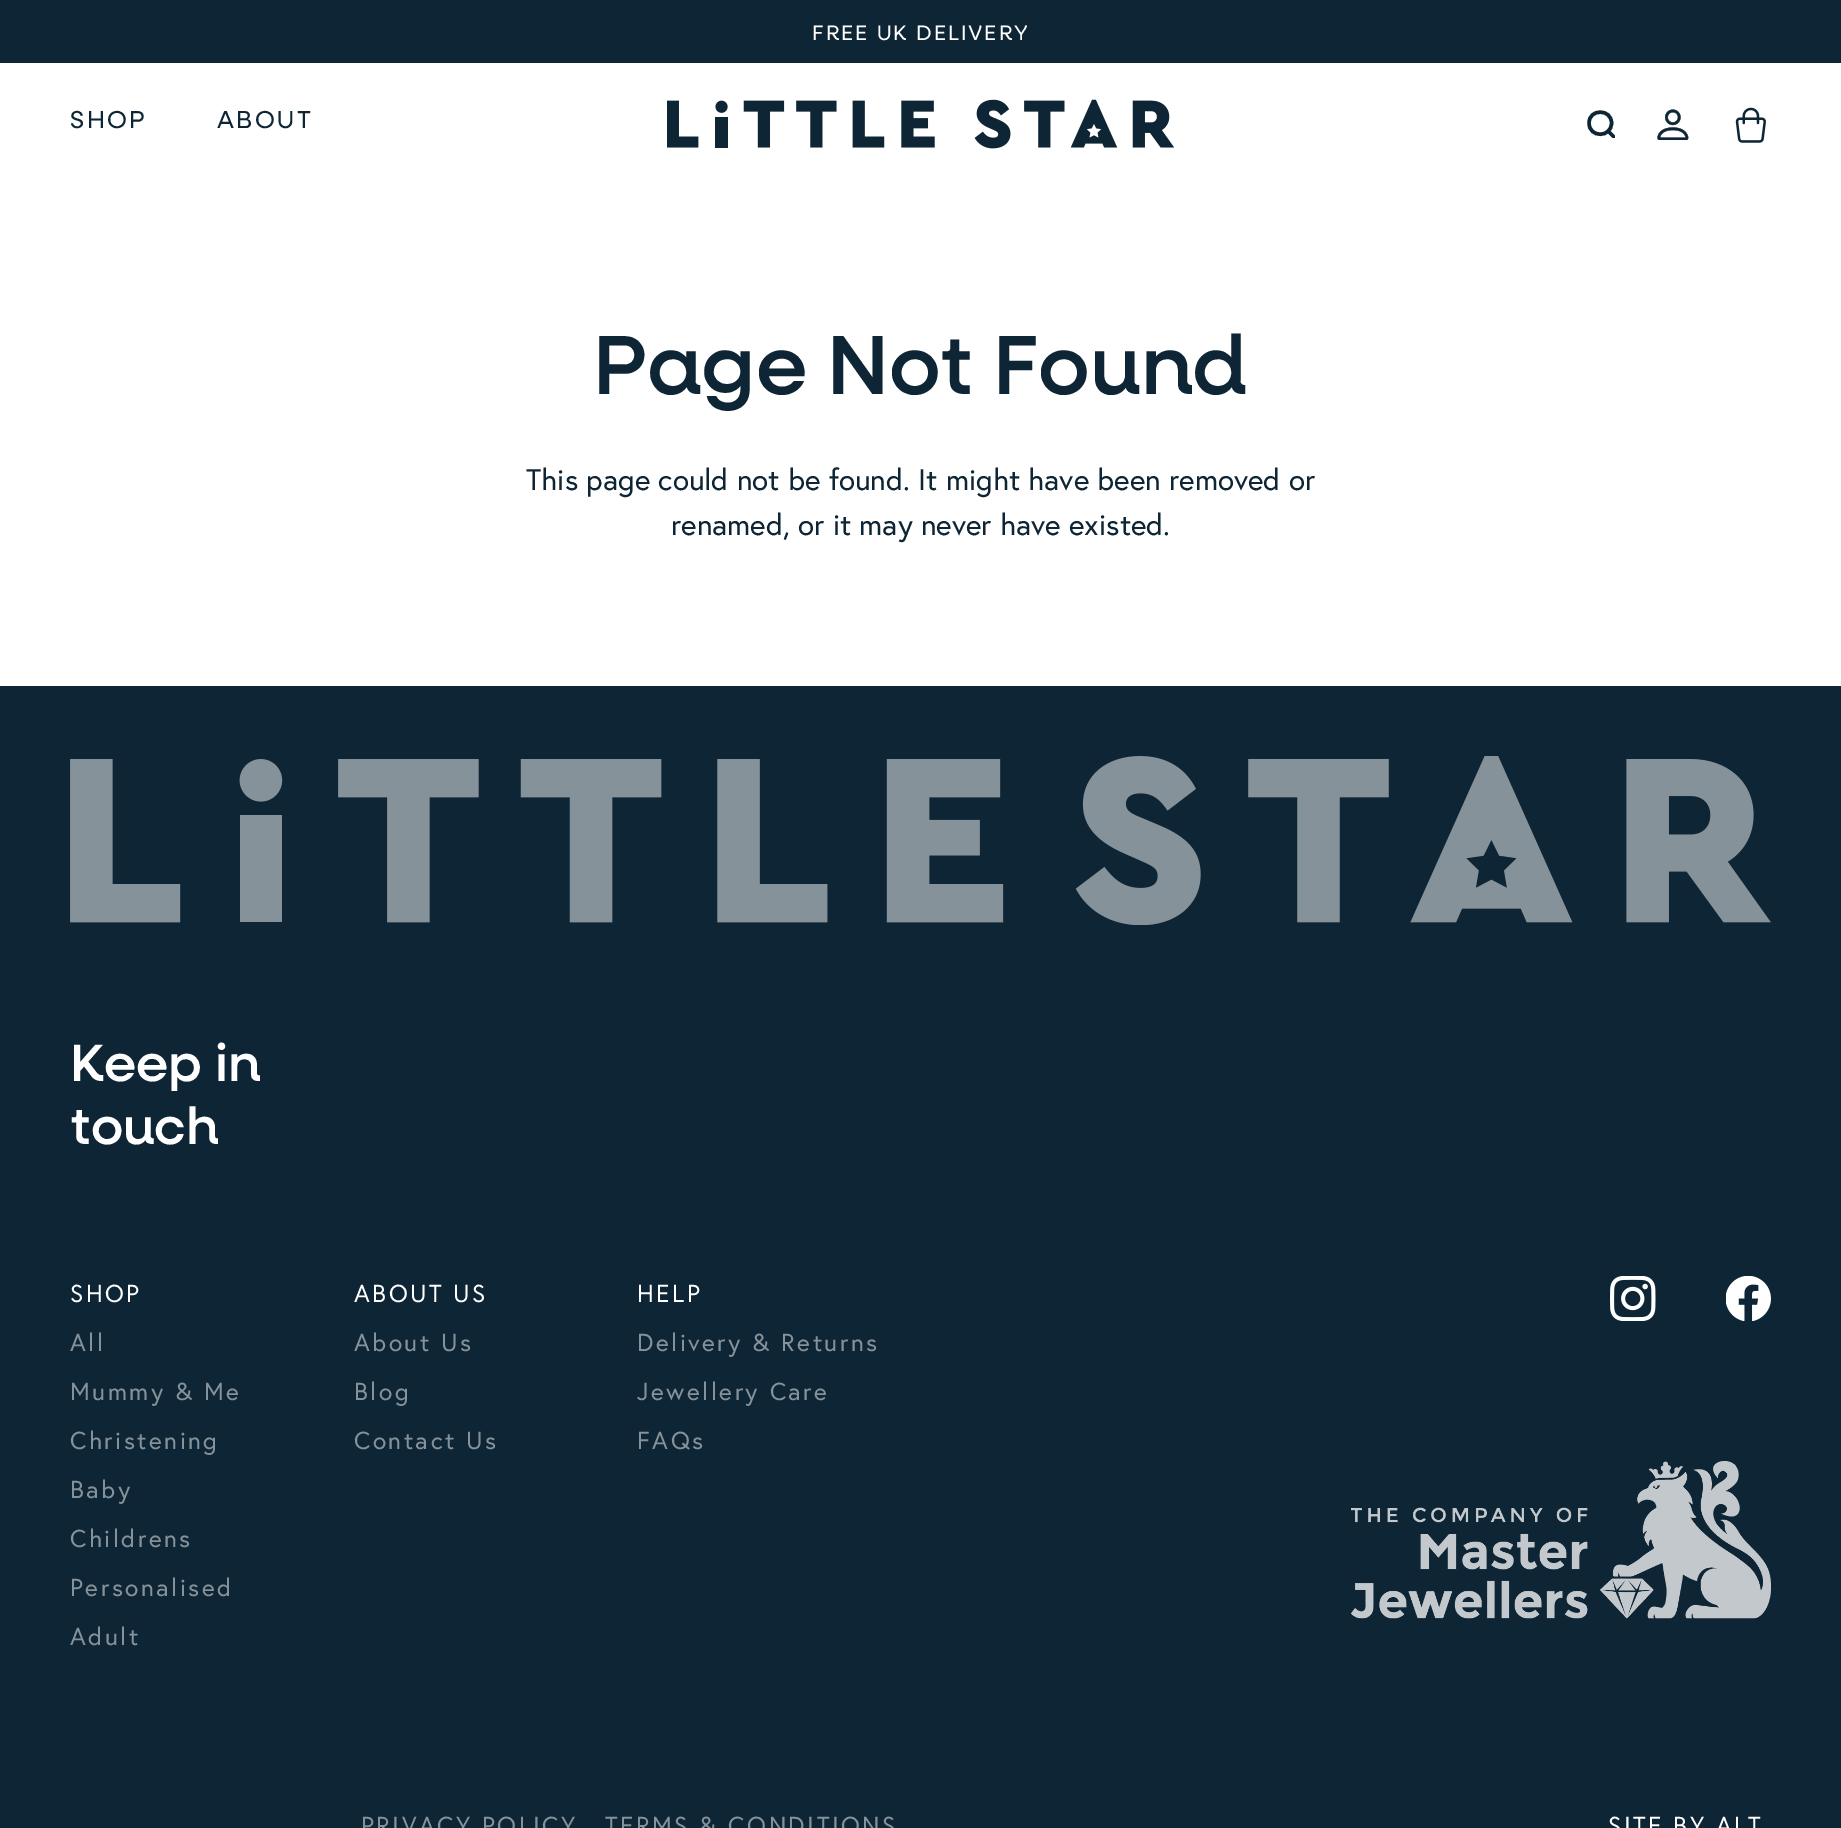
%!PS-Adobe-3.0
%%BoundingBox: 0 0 1841 1828
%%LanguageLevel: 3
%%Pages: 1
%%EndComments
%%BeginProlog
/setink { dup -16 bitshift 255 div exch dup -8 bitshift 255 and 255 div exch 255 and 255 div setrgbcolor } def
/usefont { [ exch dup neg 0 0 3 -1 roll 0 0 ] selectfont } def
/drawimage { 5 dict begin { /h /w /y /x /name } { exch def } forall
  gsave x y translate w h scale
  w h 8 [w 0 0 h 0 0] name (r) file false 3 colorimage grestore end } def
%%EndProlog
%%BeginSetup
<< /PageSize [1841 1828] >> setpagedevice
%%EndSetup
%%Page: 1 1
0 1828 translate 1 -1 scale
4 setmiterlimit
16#FFFFFF setink
0 0 1841 1828 rectfill
16#0D2534 setink
0 0 1841 63 rectfill
/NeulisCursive-Regular 21 usefont
16#FFFFFF setink
812 40 moveto 2.1 0 (FREE UK DELIVERY) ashow
/NeulisCursive-Regular 24.5 usefont
16#0D2534 setink
70 128 moveto 2.5 0 (SHOP) ashow
217 128 moveto 2.5 0 (ABOUT) ashow
(img1.raw) 667 99 507 50 drawimage
gsave
1587 110 28 28 rectclip
3.5 setlinewidth
1 setlinecap
1614 137 moveto 1608 131 lineto 1611.5 123 moveto 1611.5 138 1589 138 1589 123 curveto 1589 108.5 1611.5 108.5 1611.5 123 curveto closepath stroke
grestore
(img2.raw) 1657 109 32 31 drawimage
(img3.raw) 1735 107 31 36 drawimage
/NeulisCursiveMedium-Medium 84 usefont
593 394 moveto (Page Not Found) show
/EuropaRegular-Regular 29.75 usefont
526 490 moveto (This page could not be found. It might have been removed or) show
671 535 moveto (renamed, or it may never have existed.) show
0 686 1841 1142 rectfill
(img4.raw) 70 756 1701 169 drawimage
/NeulisCursiveMedium-Medium 52.5 usefont
16#FFFFFF setink
70 1081 moveto (Keep in) show
70 1144 moveto (touch) show
/EuropaRegular-Regular 24.5 usefont
70 1302 moveto 2.5 0 (SHOP) ashow
16#86929A setink
70 1351 moveto 2.5 0 (All) ashow
70 1400 moveto 2.5 0 (Mummy & Me) ashow
70 1449 moveto 2.5 0 (Christening) ashow
70 1498 moveto 2.5 0 (Baby) ashow
70 1547 moveto 2.5 0 (Childrens) ashow
70 1596 moveto 2.5 0 (Personalised) ashow
70 1645 moveto 2.5 0 (Adult) ashow
16#FFFFFF setink
354 1302 moveto 2.5 0 (ABOUT US) ashow
16#86929A setink
354 1351 moveto 2.5 0 (About Us) ashow
354 1400 moveto 2.5 0 (Blog) ashow
354 1449 moveto 2.5 0 (Contact Us) ashow
16#FFFFFF setink
637 1302 moveto 2.5 0 (HELP) ashow
16#86929A setink
637 1351 moveto 2.5 0 (Delivery & Returns) ashow
637 1400 moveto 2.5 0 (Jewellery Care) ashow
637 1449 moveto 2.5 0 (FAQs) ashow
(img5.raw) 1610 1276 46 45 drawimage
(img6.raw) 1726 1276 45 45 drawimage
(img7.raw) 1351 1461 420 158 drawimage
361 1834 moveto 2.5 0 (PRIVACY POLICY) ashow
605 1834 moveto 2.5 0 (TERMS & CONDITIONS) ashow
16#FFFFFF setink
1608 1834 moveto 2.5 0 (SITE BY ALT) ashow
showpage
%%EOF
